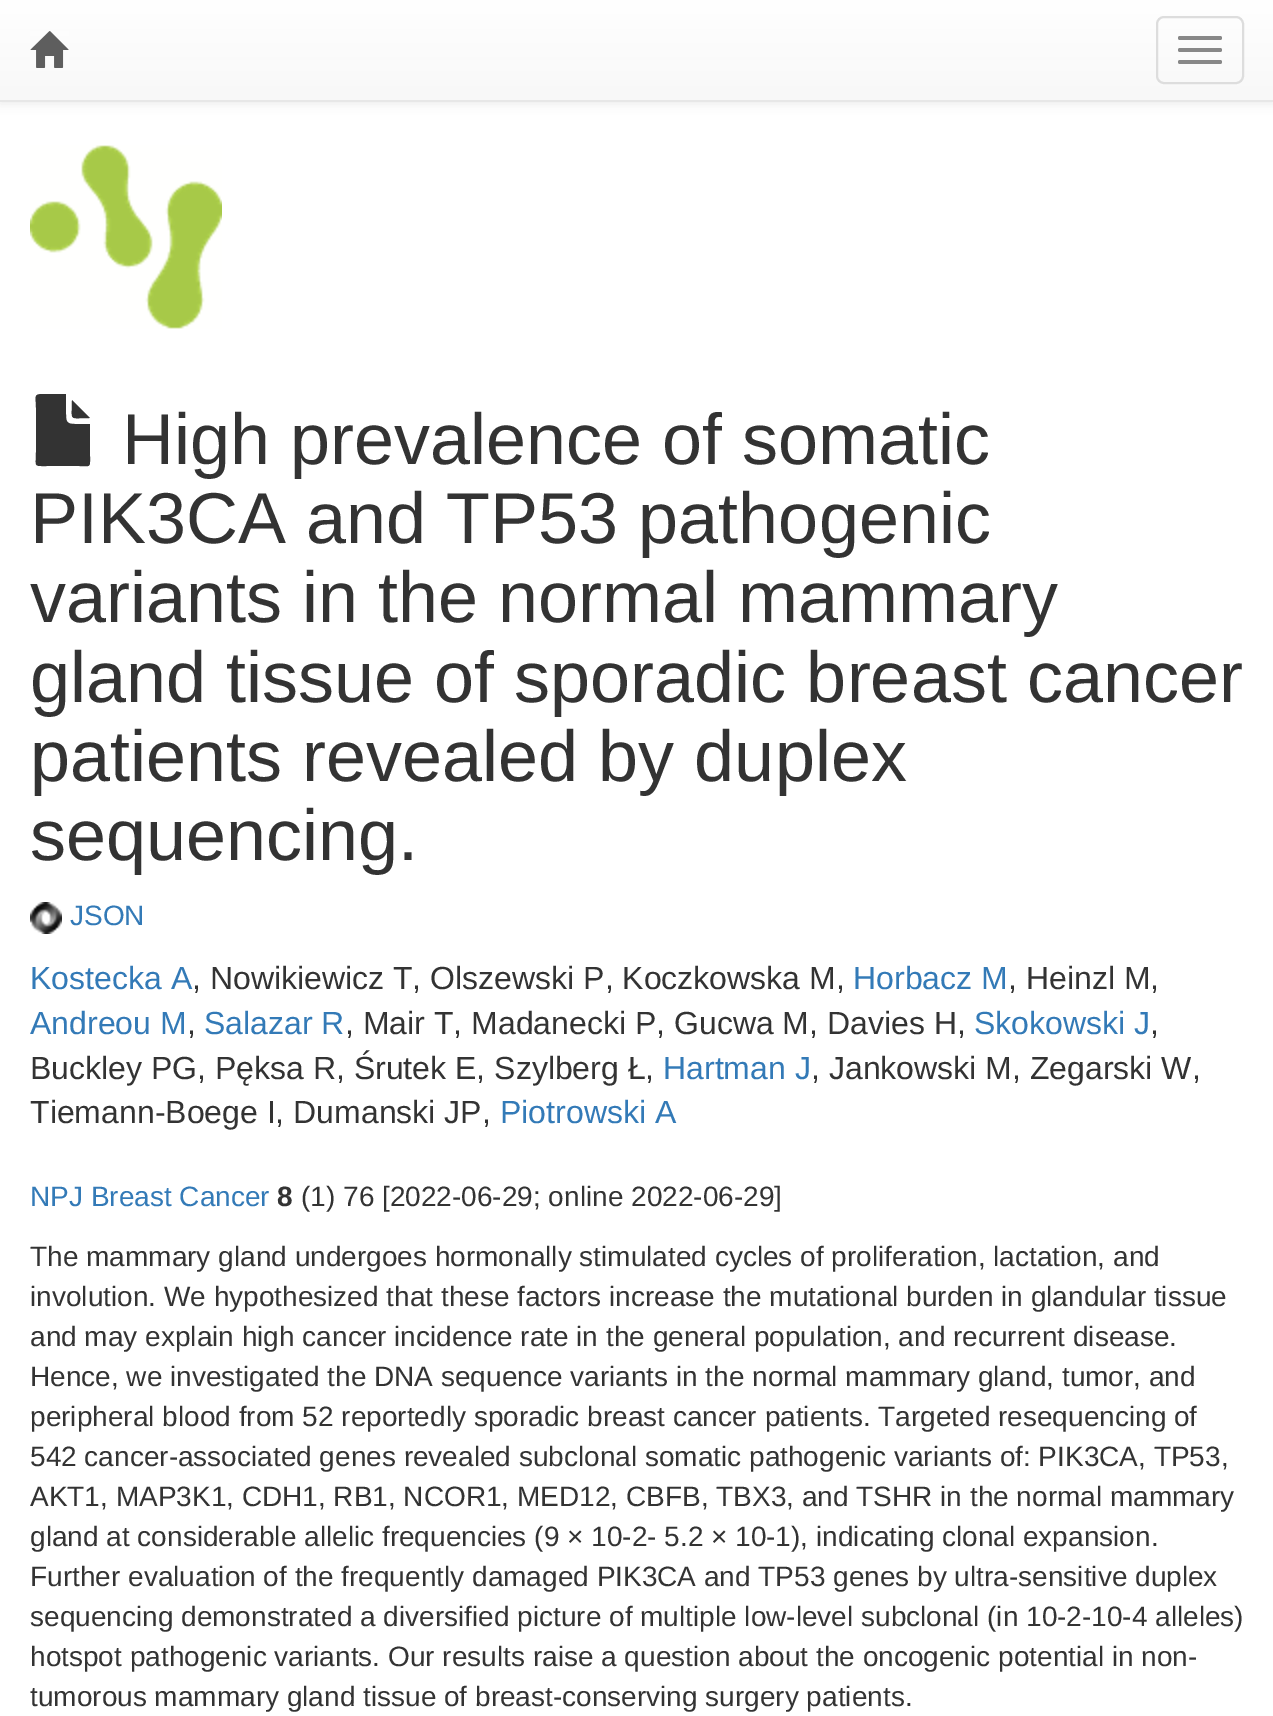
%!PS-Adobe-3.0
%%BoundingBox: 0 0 1273 1716
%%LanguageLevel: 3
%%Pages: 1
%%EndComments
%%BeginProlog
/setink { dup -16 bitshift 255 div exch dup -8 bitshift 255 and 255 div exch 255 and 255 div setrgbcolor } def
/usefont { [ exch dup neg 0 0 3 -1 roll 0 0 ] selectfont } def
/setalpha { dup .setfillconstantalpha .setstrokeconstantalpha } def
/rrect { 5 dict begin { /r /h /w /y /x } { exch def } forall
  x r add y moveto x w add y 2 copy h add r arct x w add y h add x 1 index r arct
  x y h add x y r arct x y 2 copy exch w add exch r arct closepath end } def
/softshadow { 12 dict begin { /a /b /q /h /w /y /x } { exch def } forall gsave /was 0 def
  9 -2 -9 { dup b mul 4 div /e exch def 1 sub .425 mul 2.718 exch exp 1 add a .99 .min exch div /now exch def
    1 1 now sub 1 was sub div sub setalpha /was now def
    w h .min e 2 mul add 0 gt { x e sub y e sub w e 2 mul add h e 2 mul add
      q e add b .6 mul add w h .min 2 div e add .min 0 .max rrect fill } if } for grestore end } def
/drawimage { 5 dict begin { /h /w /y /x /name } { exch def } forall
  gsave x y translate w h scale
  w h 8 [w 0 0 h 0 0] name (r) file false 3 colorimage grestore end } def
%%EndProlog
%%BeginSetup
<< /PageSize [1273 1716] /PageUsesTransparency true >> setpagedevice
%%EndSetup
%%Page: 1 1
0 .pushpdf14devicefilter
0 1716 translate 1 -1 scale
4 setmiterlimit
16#FFFFFF setink
0 0 1273 1716 rectfill
16#000000 setink
0 2 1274 102 0 5 0.07 softshadow
gsave 0 0 moveto 1273 0 lineto 1273 100 lineto 0 100 lineto closepath clip newpath
<< /ShadingType 2 /ColorSpace /DeviceRGB /Coords [637 0 637 100] /Extend [true true] /Function << /FunctionType 2 /Domain [0 1] /C0 [1 1 1] /C1 [0.973 0.973 0.973] /N 1 >> >> shfill grestore
16#E7E7E7 setink
0 100 1273 2 rectfill
(img1.raw) 30 31 39 37 drawimage
16#DDDDDD setink
2 setlinewidth
1157 17 86 66 7 rrect stroke
16#888888 setink
1178 36 44 4 2 rrect fill
1178 48 44 4 2 rrect fill
1178 60 44 4 2 rrect fill
(img2.raw) 30 145 192 184 drawimage
16#333333 setink
66 394 moveto 66 414 lineto 66 422 67 424 75 424 curveto 90 424 lineto 90 456 lineto 90 468 91 466 79 466 curveto 47 466 lineto 33 466 36 467 36 452 curveto 36 408 lineto 36 396 33 394 44 394 curveto closepath 90 418 moveto 68 418 72 422 72 400 curveto closepath fill
/LiberationSans-Regular 72 usefont
[
    [(High prevalence of somatic) 122 464]
    [(PIK3CA and TP53 pathogenic) 30 543]
    [(variants in the normal mammary) 30 622]
    [(gland tissue of sporadic breast cancer) 30 702]
    [(patients revealed by duplex) 30 781]
    [(sequencing.) 30 860]
] { aload pop moveto show } forall
(img3.raw) 30 902 32 32 drawimage
/LiberationSans-Regular 28 usefont
16#337AB7 setink
70 925 moveto (JSON) show
/LiberationSans-Regular 32 usefont
30 989 moveto (Kostecka A) show
16#333333 setink
192 989 moveto (, Nowikiewicz T, Olszewski P, Koczkowska M,) show
16#337AB7 setink
853 989 moveto (Horbacz M) show
16#333333 setink
1008 989 moveto (, Heinzl M,) show
16#337AB7 setink
30 1034 moveto (Andreou M) show
16#333333 setink
187 1034 moveto (,) show
16#337AB7 setink
204 1034 moveto (Salazar R) show
16#333333 setink
345 1034 moveto (, Mair T, Madanecki P, Gucwa M, Davies H,) show
16#337AB7 setink
974 1034 moveto (Skokowski J) show
16#333333 setink
1150 1034 moveto (,) show
30 1079 moveto (Buckley PG, Pęksa R, Śrutek E, Szylberg Ł,) show
16#337AB7 setink
663 1079 moveto (Hartman J) show
16#333333 setink
811 1079 moveto (, Jankowski M, Zegarski W,) show
30 1123 moveto (Tiemann-Boege I, Dumanski JP,) show
16#337AB7 setink
500 1123 moveto (Piotrowski A) show
/LiberationSans-Regular 28 usefont
30 1206 moveto (NPJ Breast Cancer) show
/LiberationSans-Bold 28 usefont
16#333333 setink
277 1206 moveto (8) show
/LiberationSans-Regular 28 usefont
[
    [(\(1\) 76 [2022-06-29; online 2022-06-29]) 301 1206]
    [(The mammary gland undergoes hormonally stimulated cycles of proliferation, lactation, and) 30 1266]
    [(involution. We hypothesized that these factors increase the mutational burden in glandular tissue) 30 1306]
    [(and may explain high cancer incidence rate in the general population, and recurrent disease.) 30 1346]
    [(Hence, we investigated the DNA sequence variants in the normal mammary gland, tumor, and) 30 1386]
    [(peripheral blood from 52 reportedly sporadic breast cancer patients. Targeted resequencing of) 30 1426]
    [(542 cancer-associated genes revealed subclonal somatic pathogenic variants of: PIK3CA, TP53,) 30 1466]
    [(AKT1, MAP3K1, CDH1, RB1, NCOR1, MED12, CBFB, TBX3, and TSHR in the normal mammary) 30 1506]
    [(gland at considerable allelic frequencies \(9 × 10-2- 5.2 × 10-1\), indicating clonal expansion.) 30 1546]
    [(Further evaluation of the frequently damaged PIK3CA and TP53 genes by ultra-sensitive duplex) 30 1586]
    [(sequencing demonstrated a diversified picture of multiple low-level subclonal \(in 10-2-10-4 alleles\)) 30 1626]
    [(hotspot pathogenic variants. Our results raise a question about the oncogenic potential in non-) 30 1666]
    [(tumorous mammary gland tissue of breast-conserving surgery patients.) 30 1706]
] { aload pop moveto show } forall
.poppdf14devicefilter showpage
%%EOF
